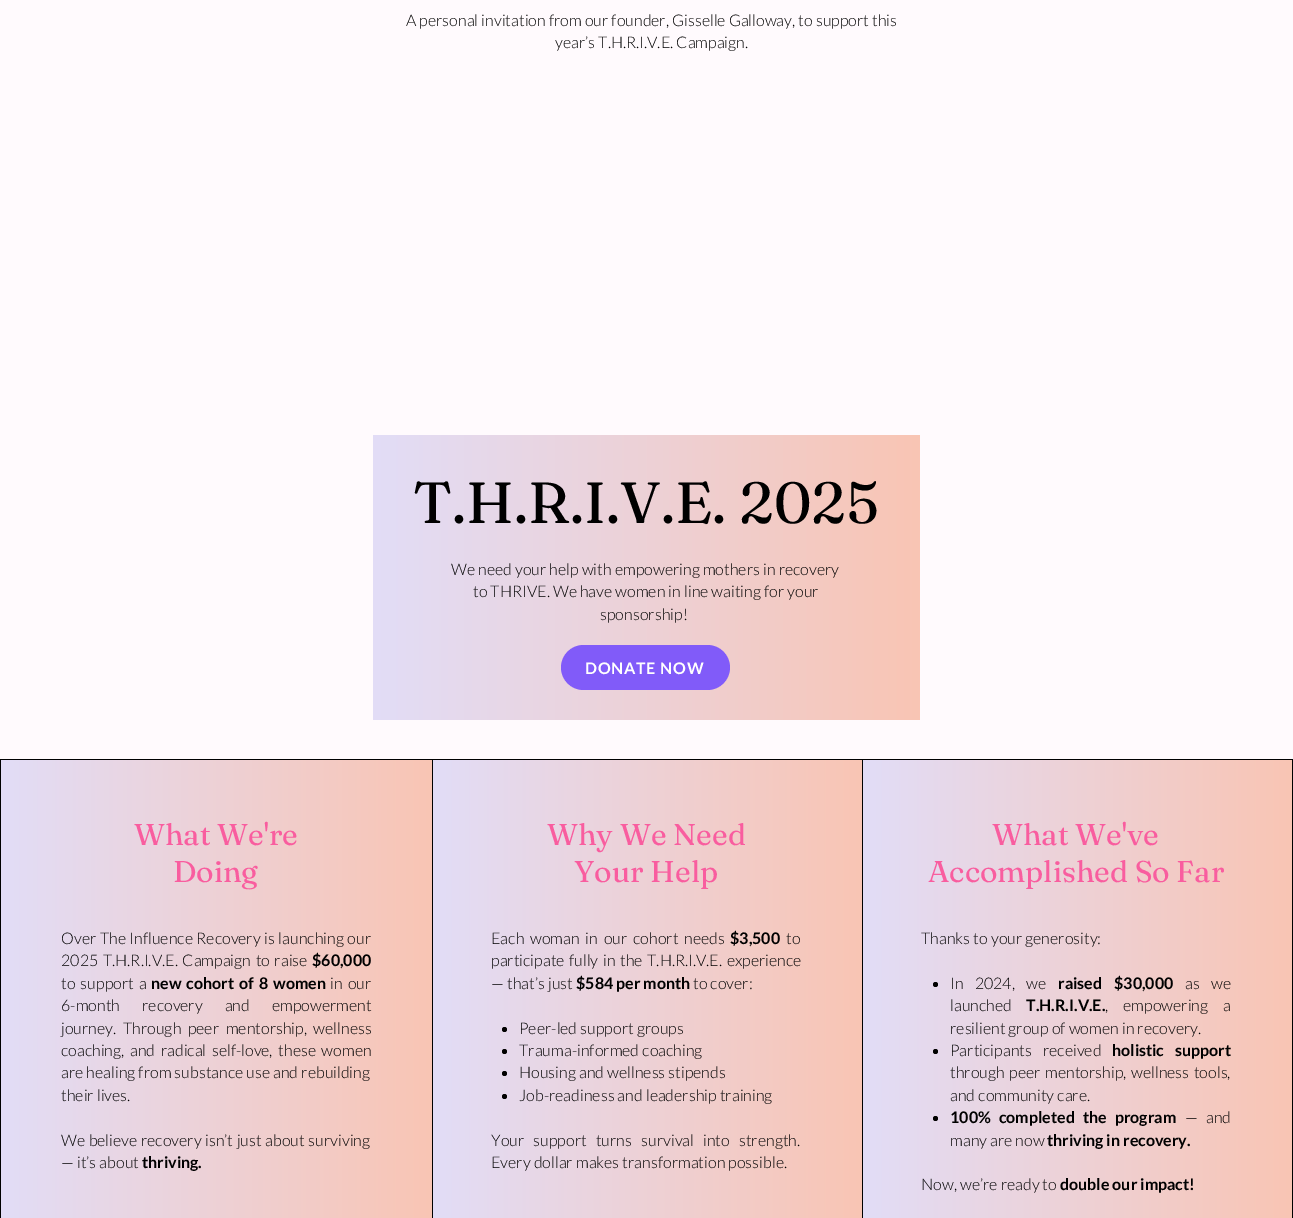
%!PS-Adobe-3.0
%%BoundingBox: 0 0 1293 1218
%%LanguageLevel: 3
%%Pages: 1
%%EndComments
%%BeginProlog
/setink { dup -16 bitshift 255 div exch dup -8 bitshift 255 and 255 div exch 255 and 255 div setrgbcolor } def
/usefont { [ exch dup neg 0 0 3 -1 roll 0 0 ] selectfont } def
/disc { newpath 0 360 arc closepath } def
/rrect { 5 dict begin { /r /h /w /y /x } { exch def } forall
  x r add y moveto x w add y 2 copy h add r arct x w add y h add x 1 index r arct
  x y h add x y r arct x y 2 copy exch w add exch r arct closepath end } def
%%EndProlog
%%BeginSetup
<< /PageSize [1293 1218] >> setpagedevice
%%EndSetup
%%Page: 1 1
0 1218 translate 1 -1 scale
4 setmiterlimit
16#FFFAFD setink
0 0 1293 1218 rectfill
/Lato-Light 16 usefont
16#000000 setink
406 26 moveto (A personal invitation from our founder, Gisselle Galloway, to support this) show
555 48 moveto (year’s T.H.R.I.V.E. Campaign.) show
gsave 373 435 moveto 920 435 lineto 920 720 lineto 373 720 lineto closepath clip newpath
<< /ShadingType 2 /ColorSpace /DeviceRGB /Coords [373 578 920 578] /Extend [true true] /Function << /FunctionType 2 /Domain [0 1] /C0 [0.886 0.867 0.969] /C1 [0.976 0.773 0.706] /N 1 >> >> shfill grestore
/Fraunces-Regular 58 usefont
413 523 moveto (T.H.R.I.V.E. 2025) show
/Lato-Light 16 usefont
[
    [(We need your help with empowering mothers in recovery) 451 575]
    [(to THRIVE. We have women in line waiting for your) 473 597]
    [(sponsorship!) 600 620]
] { aload pop moveto show } forall
16#815BF9 setink
561 645 169 45 22.5 rrect fill
/Lato-Bold 16 usefont
16#FFFFFF setink
585 674 moveto 0.75 0 (DONATE NOW) ashow
16#000000 setink
0 759 1293 459 rectfill
gsave 1 760 moveto 432 760 lineto 432 1218 lineto 1 1218 lineto closepath clip newpath
<< /ShadingType 2 /ColorSpace /DeviceRGB /Coords [1 1048 432 1048] /Extend [true true] /Function << /FunctionType 2 /Domain [0 1] /C0 [0.886 0.867 0.969] /C1 [0.976 0.773 0.706] /N 1 >> >> shfill grestore
/Fraunces-Regular 30 usefont
16#F95D9F setink
134 845 moveto (What We're) show
173 882 moveto (Doing) show
/Lato-Light 16 usefont
16#000000 setink
61 944 moveto 0.5 0 32 (Over The Influence Recovery is launching our) widthshow
61 966 moveto 1.5 0 32 (2025 T.H.R.I.V.E. Campaign to raise) widthshow
/Lato-Bold 16 usefont
312 966 moveto ($60,000) show
/Lato-Light 16 usefont
61 989 moveto 2 0 32 (to support a) widthshow
/Lato-Bold 16 usefont
151 989 moveto 2 0 32 (new cohort of 8 women) widthshow
/Lato-Light 16 usefont
330 989 moveto 2 0 32 (in our) widthshow
61 1011 moveto 19 0 32 (6-month recovery and empowerment) widthshow
61 1034 moveto 3.5 0 32 (journey. Through peer mentorship, wellness) widthshow
61 1056 moveto 2.5 0 32 (coaching, and radical self-love, these women) widthshow
61 1078 moveto (are healing from substance use and rebuilding) show
61 1101 moveto (their lives.) show
61 1146 moveto 0.5 0 32 (We believe recovery isn’t just about surviving) widthshow
61 1168 moveto (— it’s about) show
/Lato-Bold 16 usefont
142 1168 moveto (thriving.) show
gsave 433 760 moveto 862 760 lineto 862 1218 lineto 433 1218 lineto closepath clip newpath
<< /ShadingType 2 /ColorSpace /DeviceRGB /Coords [433 1048 862 1048] /Extend [true true] /Function << /FunctionType 2 /Domain [0 1] /C0 [0.886 0.867 0.969] /C1 [0.976 0.773 0.706] /N 1 >> >> shfill grestore
/Fraunces-Regular 30 usefont
16#F95D9F setink
547 845 moveto (Why We Need) show
574 882 moveto (Your Help) show
/Lato-Light 16 usefont
16#000000 setink
491 944 moveto 2.75 0 32 (Each woman in our cohort needs) widthshow
/Lato-Bold 16 usefont
730 944 moveto ($3,500) show
/Lato-Light 16 usefont
786 944 moveto (to) show
491 966 moveto 1.5 0 32 (participate fully in the T.H.R.I.V.E. experience) widthshow
491 989 moveto (— that’s just) show
/Lato-Bold 16 usefont
576 989 moveto ($584 per month) show
/Lato-Light 16 usefont
693 989 moveto (to cover:) show
504.5 1029.5 2.5 disc fill
519 1034 moveto (Peer-led support groups) show
504.5 1051.5 2.5 disc fill
519 1056 moveto (Trauma-informed coaching) show
504.5 1073.5 2.5 disc fill
519 1078 moveto (Housing and wellness stipends) show
504.5 1096.5 2.5 disc fill
519 1101 moveto (Job-readiness and leadership training) show
491 1146 moveto 6 0 32 (Your support turns survival into strength.) widthshow
491 1168 moveto (Every dollar makes transformation possible.) show
gsave 863 760 moveto 1292 760 lineto 1292 1218 lineto 863 1218 lineto closepath clip newpath
<< /ShadingType 2 /ColorSpace /DeviceRGB /Coords [863 1048 1292 1048] /Extend [true true] /Function << /FunctionType 2 /Domain [0 1] /C0 [0.886 0.867 0.969] /C1 [0.976 0.773 0.706] /N 1 >> >> shfill grestore
/Fraunces-Regular 30 usefont
16#F95D9F setink
992 845 moveto (What We've) show
928 882 moveto (Accomplished So Far) show
/Lato-Light 16 usefont
16#000000 setink
921 944 moveto (Thanks to your generosity:) show
935.5 984.5 2.5 disc fill
950 989 moveto 8 0 32 (In 2024, we) widthshow
/Lato-Bold 16 usefont
1058 989 moveto (raised) show
1114 989 moveto ($30,000) show
/Lato-Light 16 usefont
1185 989 moveto 8 0 32 (as we) widthshow
950 1011 moveto (launched) show
/Lato-Bold 16 usefont
1026 1011 moveto (T.H.R.I.V.E.) show
/Lato-Light 16 usefont
1105 1011 moveto 12 0 32 (, empowering a) widthshow
950 1034 moveto (resilient group of women in recovery.) show
935.5 1051.5 2.5 disc fill
950 1056 moveto 8 0 32 (Participants received) widthshow
/Lato-Bold 16 usefont
1112 1056 moveto 8 0 32 (holistic support) widthshow
/Lato-Light 16 usefont
950 1078 moveto 1.5 0 32 (through peer mentorship, wellness tools,) widthshow
950 1101 moveto (and community care.) show
935.5 1118.5 2.5 disc fill
/Lato-Bold 16 usefont
950 1123 moveto 5 0 32 (100% completed the program) widthshow
/Lato-Light 16 usefont
1185 1123 moveto 5 0 32 (— and) widthshow
950 1146 moveto (many are now) show
/Lato-Bold 16 usefont
1047 1146 moveto (thriving in recovery.) show
/Lato-Light 16 usefont
921 1190 moveto (Now, we’re ready to) show
/Lato-Bold 16 usefont
1060 1190 moveto (double our impact!) show
showpage
%%EOF
